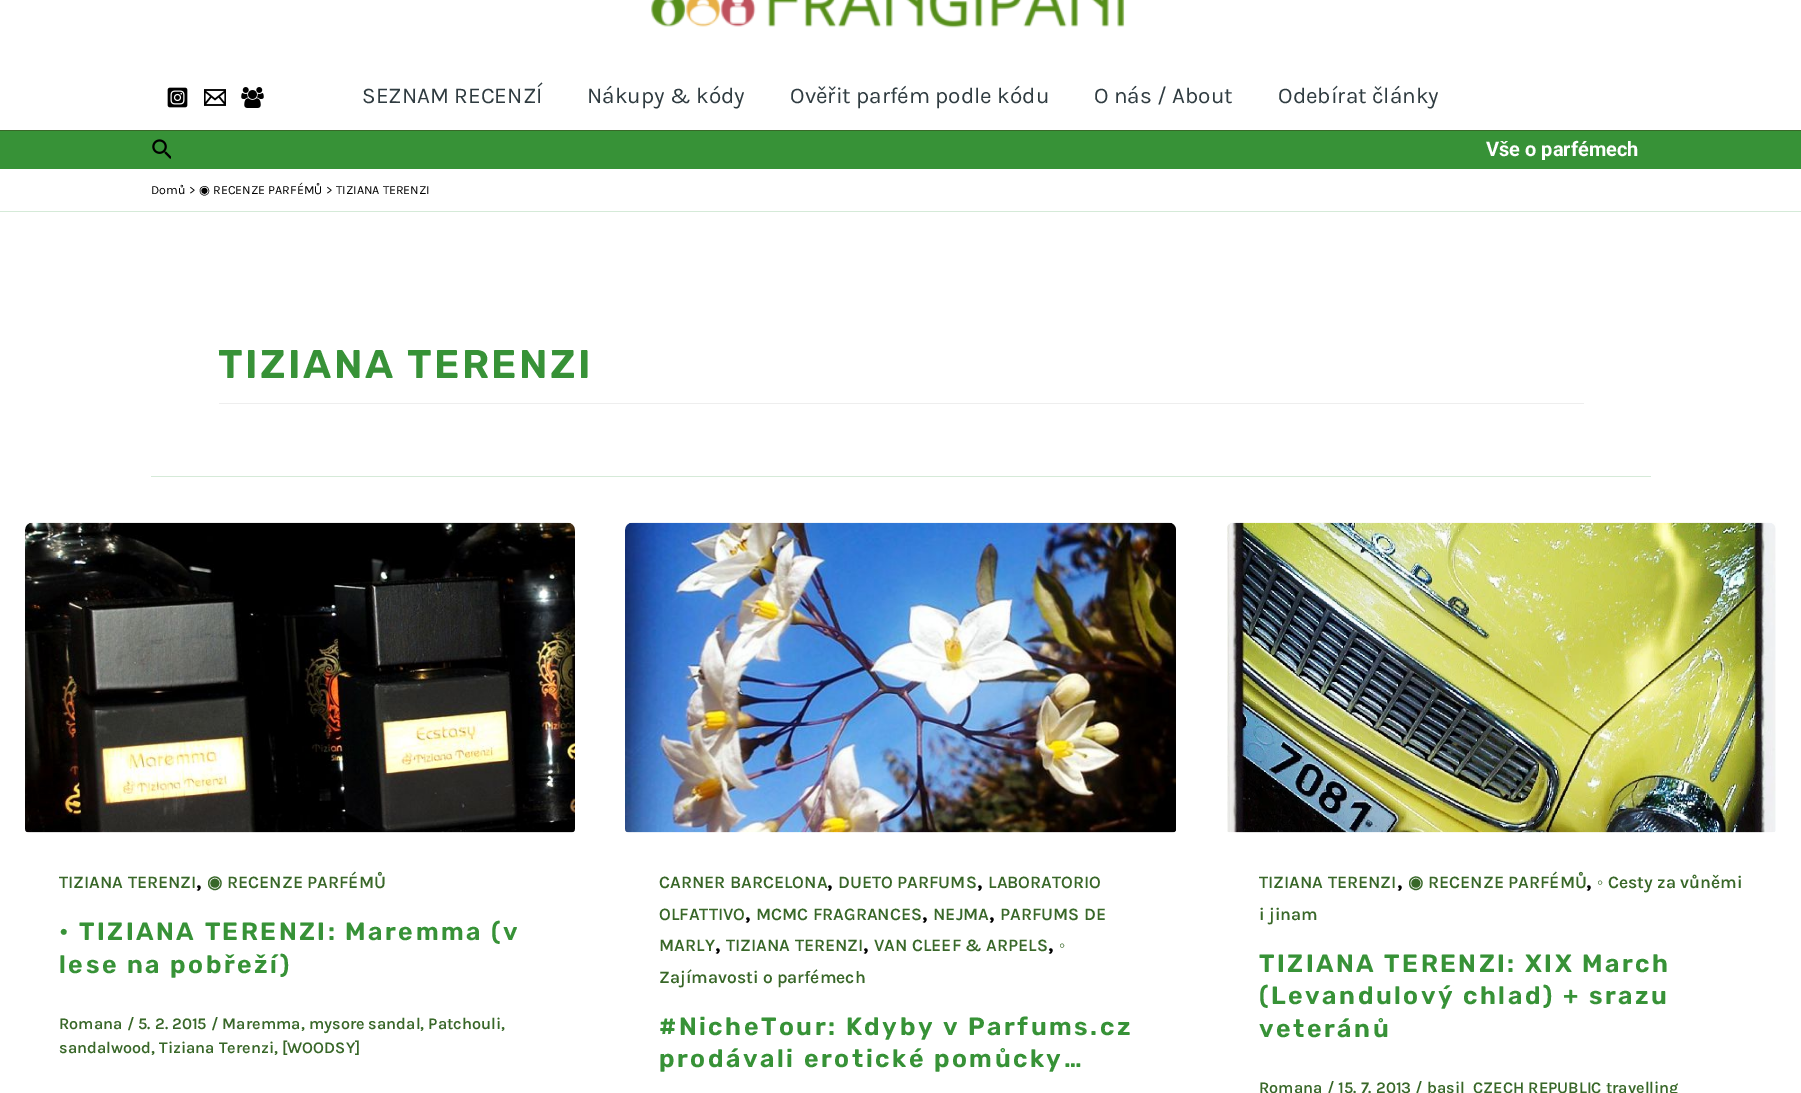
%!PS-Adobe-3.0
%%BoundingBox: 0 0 1801 1093
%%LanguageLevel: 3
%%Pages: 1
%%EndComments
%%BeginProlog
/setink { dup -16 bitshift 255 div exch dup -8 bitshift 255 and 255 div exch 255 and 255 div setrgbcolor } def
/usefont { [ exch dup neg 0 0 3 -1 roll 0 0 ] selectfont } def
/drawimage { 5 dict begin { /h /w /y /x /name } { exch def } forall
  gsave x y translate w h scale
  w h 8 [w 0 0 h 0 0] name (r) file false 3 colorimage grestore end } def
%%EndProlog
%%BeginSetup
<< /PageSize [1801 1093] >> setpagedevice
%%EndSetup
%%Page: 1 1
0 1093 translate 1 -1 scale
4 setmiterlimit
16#FFFFFF setink
0 0 1801 1093 rectfill
(img1.raw) 651 0 474 28 drawimage
16#386728 setink
0 130 1801 1 rectfill
(img2.raw) 167 87 21 21 drawimage
(img3.raw) 204 89 22 17 drawimage
(img4.raw) 241 87 23 21 drawimage
/Karla-Regular 22.5 usefont
16#2F3B40 setink
[
    [(SEZNAM RECENZÍ) 362 103]
    [(Nákupy & kódy) 587 103]
    [(Ověřit parfém podle kódu) 790 103]
    [(O nás / About) 1094 103]
    [(Odebírat články) 1278 103]
] { aload pop moveto show } forall
16#379237 setink
0 131 1801 38 rectfill
(img5.raw) 152 139 19 20 drawimage
/Roboto-Bold 20 usefont
16#FFFFFF setink
1486 156 moveto (Vše o parfémech) show
16#D5EAD8 setink
0 211 1801 1 rectfill
/Karla-Regular 12.5 usefont
16#000000 setink
151 194 moveto (Domů) show
189 194 moveto (>) show
/DejaVuSans-Regular 12.5 usefont
199 194 moveto (◉) show
/Karla-Regular 12.5 usefont
[
    [(RECENZE PARFÉMŮ) 213 194]
    [(>) 326 194]
    [(TIZIANA TERENZI) 336 194]
] { aload pop moveto show } forall
16#D5EAD8 setink
151 476 1500 1 rectfill
16#EEEEEE setink
219 403 1365 1 rectfill
/Rubik-SemiBold 40 usefont
16#379237 setink
218 378 moveto 2.5 0 (TIZIANA TERENZI) ashow
(img6.raw) 25 522 550 311 drawimage
/Karla-SemiBold 17.5 usefont
16#386728 setink
59 888 moveto (TIZIANA TERENZI) show
/Karla-SemiBold 22.5 usefont
16#000000 setink
196 888 moveto (,) show
/DejaVuSans-Bold 17.5 usefont
16#386728 setink
207 888 moveto (◉) show
/Karla-SemiBold 17.5 usefont
227 888 moveto (RECENZE PARFÉMŮ) show
/Rubik-SemiBold 25 usefont
16#379237 setink
59 940 moveto 2.5 0 (• TIZIANA TERENZI: Maremma \(v) ashow
59 973 moveto 2.5 0 (lese na pobřeží\)) ashow
/Karla-SemiBold 16.25 usefont
16#386728 setink
59 1029 moveto (Romana / 5. 2. 2015 / Maremma, mysore sandal, Patchouli,) show
59 1053 moveto (sandalwood, Tiziana Terenzi, [WOODSY]) show
(img7.raw) 625 522 551 311 drawimage
/Karla-SemiBold 17.5 usefont
659 888 moveto (CARNER BARCELONA) show
/Karla-SemiBold 22.5 usefont
16#000000 setink
827 888 moveto (,) show
/Karla-SemiBold 17.5 usefont
16#386728 setink
838 888 moveto (DUETO PARFUMS) show
/Karla-SemiBold 22.5 usefont
16#000000 setink
977 888 moveto (,) show
/Karla-SemiBold 17.5 usefont
16#386728 setink
988 888 moveto (LABORATORIO) show
659 920 moveto (OLFATTIVO) show
/Karla-SemiBold 22.5 usefont
16#000000 setink
745 920 moveto (,) show
/Karla-SemiBold 17.5 usefont
16#386728 setink
756 920 moveto (MCMC FRAGRANCES) show
/Karla-SemiBold 22.5 usefont
16#000000 setink
922 920 moveto (,) show
/Karla-SemiBold 17.5 usefont
16#386728 setink
933 920 moveto (NEJMA) show
/Karla-SemiBold 22.5 usefont
16#000000 setink
989 920 moveto (,) show
/Karla-SemiBold 17.5 usefont
16#386728 setink
[
    [(PARFUMS DE) 1000 920]
    [(MARLY) 659 951]
    [(TIZIANA TERENZI) 726 951]
    [(VAN CLEEF & ARPELS) 874 951]
] { aload pop moveto show } forall
/LiberationSans-Bold 17.5 usefont
1059 951 moveto (◦) show
/Karla-SemiBold 22.5 usefont
16#000000 setink
[
    [(,) 715 951]
    [(,) 863 951]
    [(,) 1048 951]
] { aload pop moveto show } forall
/Karla-SemiBold 17.5 usefont
16#386728 setink
659 983 moveto (Zajímavosti o parfémech) show
/Rubik-SemiBold 25 usefont
16#379237 setink
659 1035 moveto 2.5 0 (#NicheTour: Kdyby v Parfums.cz) ashow
659 1067 moveto 2.5 0 (prodávali erotické pomůcky…) ashow
(img8.raw) 1227 522 549 311 drawimage
/Karla-SemiBold 17.5 usefont
16#386728 setink
1259 888 moveto (TIZIANA TERENZI) show
/DejaVuSans-Bold 17.5 usefont
1408 888 moveto (◉) show
/Karla-SemiBold 17.5 usefont
1428 888 moveto (RECENZE PARFÉMŮ) show
/LiberationSans-Bold 17.5 usefont
1597 888 moveto (◦) show
/Karla-SemiBold 17.5 usefont
1608 888 moveto (Cesty za vůněmi) show
/Karla-SemiBold 22.5 usefont
16#000000 setink
1397 888 moveto (,) show
1586 888 moveto (,) show
/Karla-SemiBold 17.5 usefont
16#386728 setink
1259 920 moveto (i jinam) show
/Rubik-SemiBold 25 usefont
16#379237 setink
1259 972 moveto 2.5 0 (TIZIANA TERENZI: XIX March) ashow
1259 1004 moveto 2.5 0 (\(Levandulový chlad\) + srazu) ashow
1259 1037 moveto 2.5 0 (veteránů) ashow
/Karla-SemiBold 16.25 usefont
16#386728 setink
1259 1093 moveto (Romana / 15. 7. 2013 / basil) show
1473 1093 moveto (CZECH REPUBLIC travelling) show
showpage
%%EOF
